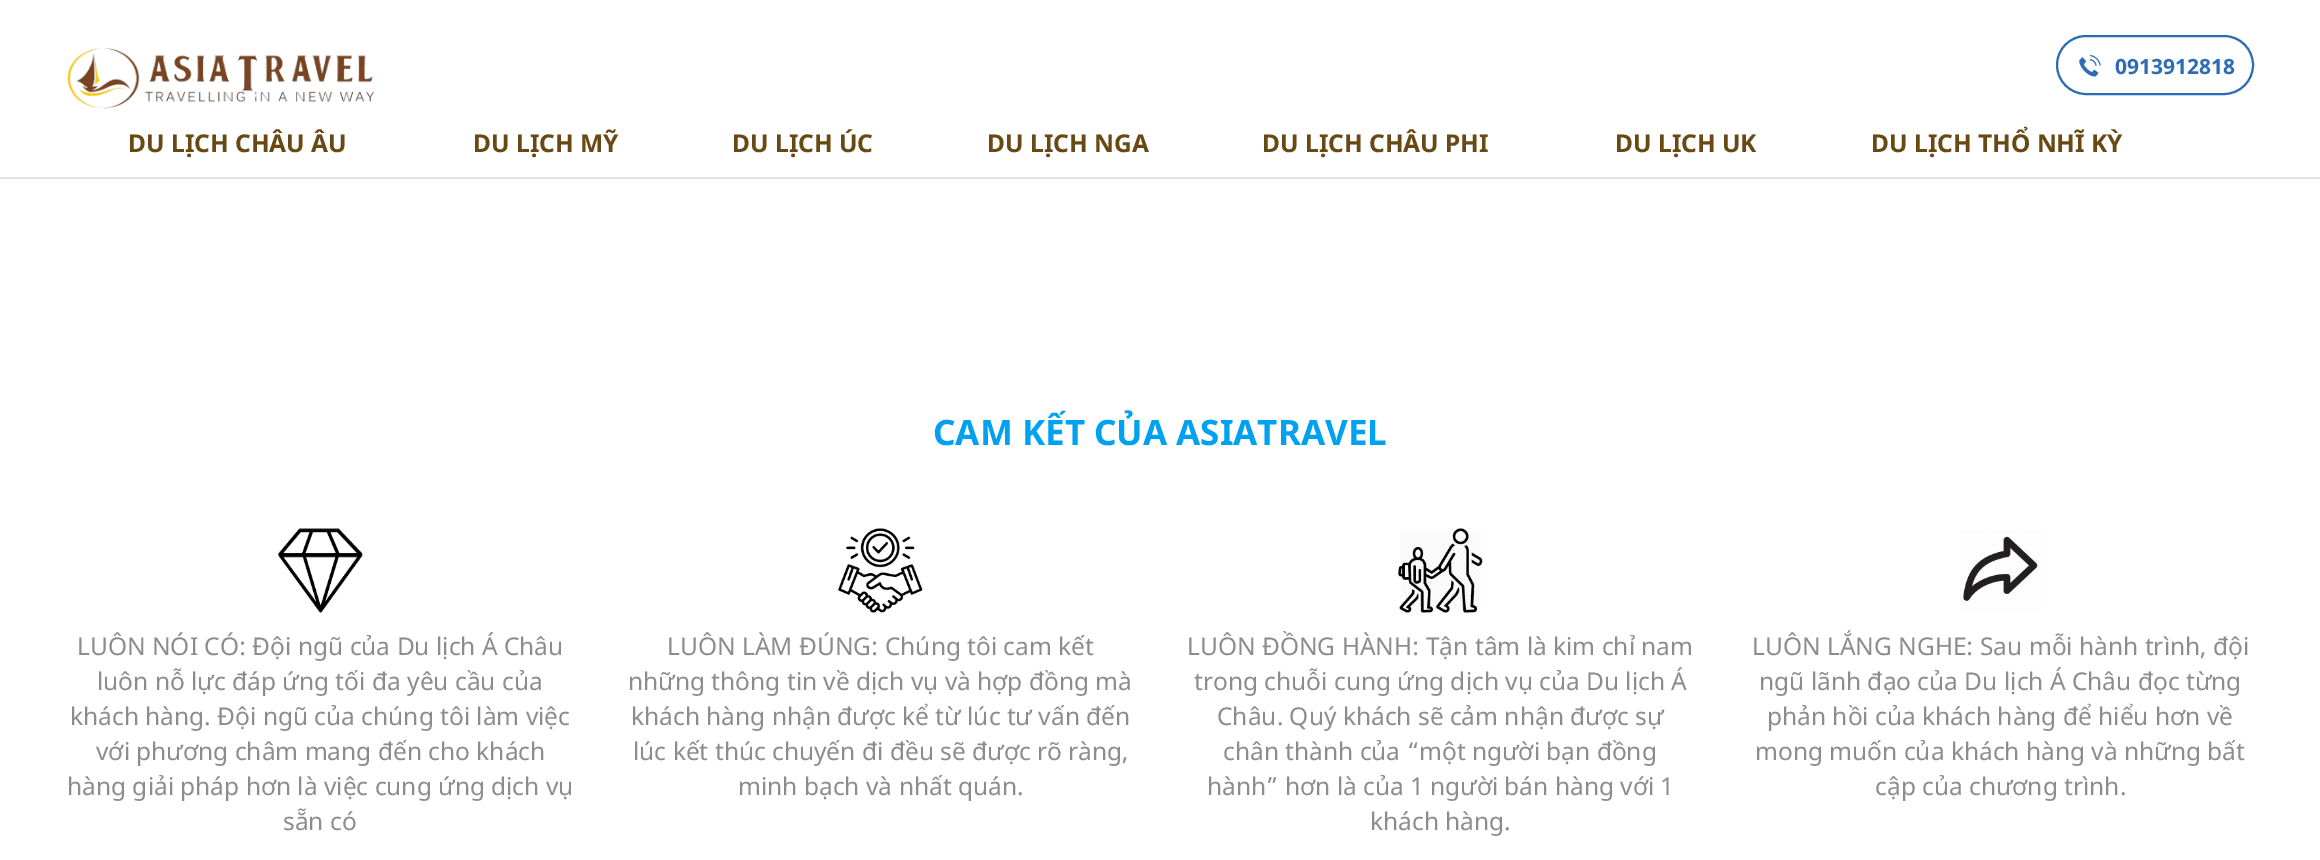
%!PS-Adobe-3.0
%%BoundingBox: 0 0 2320 860
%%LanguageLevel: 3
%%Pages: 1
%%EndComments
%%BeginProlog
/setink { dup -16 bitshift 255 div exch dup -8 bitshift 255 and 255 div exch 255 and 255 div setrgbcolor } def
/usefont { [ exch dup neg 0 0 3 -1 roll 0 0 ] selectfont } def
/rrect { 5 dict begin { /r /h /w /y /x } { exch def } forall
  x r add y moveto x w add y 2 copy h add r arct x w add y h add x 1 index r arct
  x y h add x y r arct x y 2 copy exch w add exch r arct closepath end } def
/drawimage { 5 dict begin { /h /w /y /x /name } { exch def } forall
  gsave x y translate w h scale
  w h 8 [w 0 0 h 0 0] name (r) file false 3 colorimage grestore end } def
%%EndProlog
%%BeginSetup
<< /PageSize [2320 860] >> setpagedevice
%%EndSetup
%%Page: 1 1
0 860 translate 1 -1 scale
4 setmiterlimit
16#FFFFFF setink
0 0 2320 860 rectfill
16#E4E4E4 setink
0 177 2320 2 rectfill
(img1.raw) 67 48 308 61 drawimage
16#2D6CB4 setink
2 setlinewidth
2057 36 196 58 29 rrect stroke
(img2.raw) 2079 54 22 23 drawimage
/NotoSans-Bold 21 usefont
2115 74 moveto (0913912818) show
/NotoSans-Bold 24.5 usefont
16#684913 setink
[
    [(DU LỊCH CHÂU ÂU) 128 152]
    [(DU LỊCH MỸ) 473 152]
    [(DU LỊCH ÚC) 732 152]
    [(DU LỊCH NGA) 987 152]
    [(DU LỊCH CHÂU PHI) 1262 152]
    [(DU LỊCH UK) 1615 152]
    [(DU LỊCH THỔ NHĨ KỲ) 1871 152]
] { aload pop moveto show } forall
/NotoSans-Bold 35 usefont
16#00A1F1 setink
933 445 moveto (CAM KẾT CỦA ASIATRAVEL) show
(img3.raw) 278 528 85 85 drawimage
/NotoSans-Regular 24.5 usefont
16#8C8C8C setink
[
    [(LUÔN NÓI CÓ: Đội ngũ của Du lịch Á Châu) 77 655]
    [(luôn nỗ lực đáp ứng tối đa yêu cầu của) 97 690]
    [(khách hàng. Đội ngũ của chúng tôi làm việc) 70 725]
    [(với phương châm mang đến cho khách) 96 760]
    [(hàng giải pháp hơn là việc cung ứng dịch vụ) 67 795]
    [(sẵn có) 283 830]
] { aload pop moveto show } forall
(img4.raw) 838 528 85 85 drawimage
[
    [(LUÔN LÀM ĐÚNG: Chúng tôi cam kết) 667 655]
    [(những thông tin về dịch vụ và hợp đồng mà) 628 690]
    [(khách hàng nhận được kể từ lúc tư vấn đến) 631 725]
    [(lúc kết thúc chuyến đi đều sẽ được rõ ràng,) 633 760]
    [(minh bạch và nhất quán.) 738 795]
] { aload pop moveto show } forall
(img5.raw) 1398 528 85 85 drawimage
[
    [(LUÔN ĐỒNG HÀNH: Tận tâm là kim chỉ nam) 1187 655]
    [(trong chuỗi cung ứng dịch vụ của Du lịch Á) 1194 690]
    [(Châu. Quý khách sẽ cảm nhận được sự) 1217 725]
    [(chân thành của “một người bạn đồng) 1223 760]
    [(hành” hơn là của 1 người bán hàng với 1) 1207 795]
    [(khách hàng.) 1370 830]
] { aload pop moveto show } forall
(img6.raw) 1960 529 81 83 drawimage
[
    [(LUÔN LẮNG NGHE: Sau mỗi hành trình, đội) 1752 655]
    [(ngũ lãnh đạo của Du lịch Á Châu đọc từng) 1759 690]
    [(phản hồi của khách hàng để hiểu hơn về) 1767 725]
    [(mong muốn của khách hàng và những bất) 1755 760]
    [(cập của chương trình.) 1875 795]
] { aload pop moveto show } forall
showpage
%%EOF
